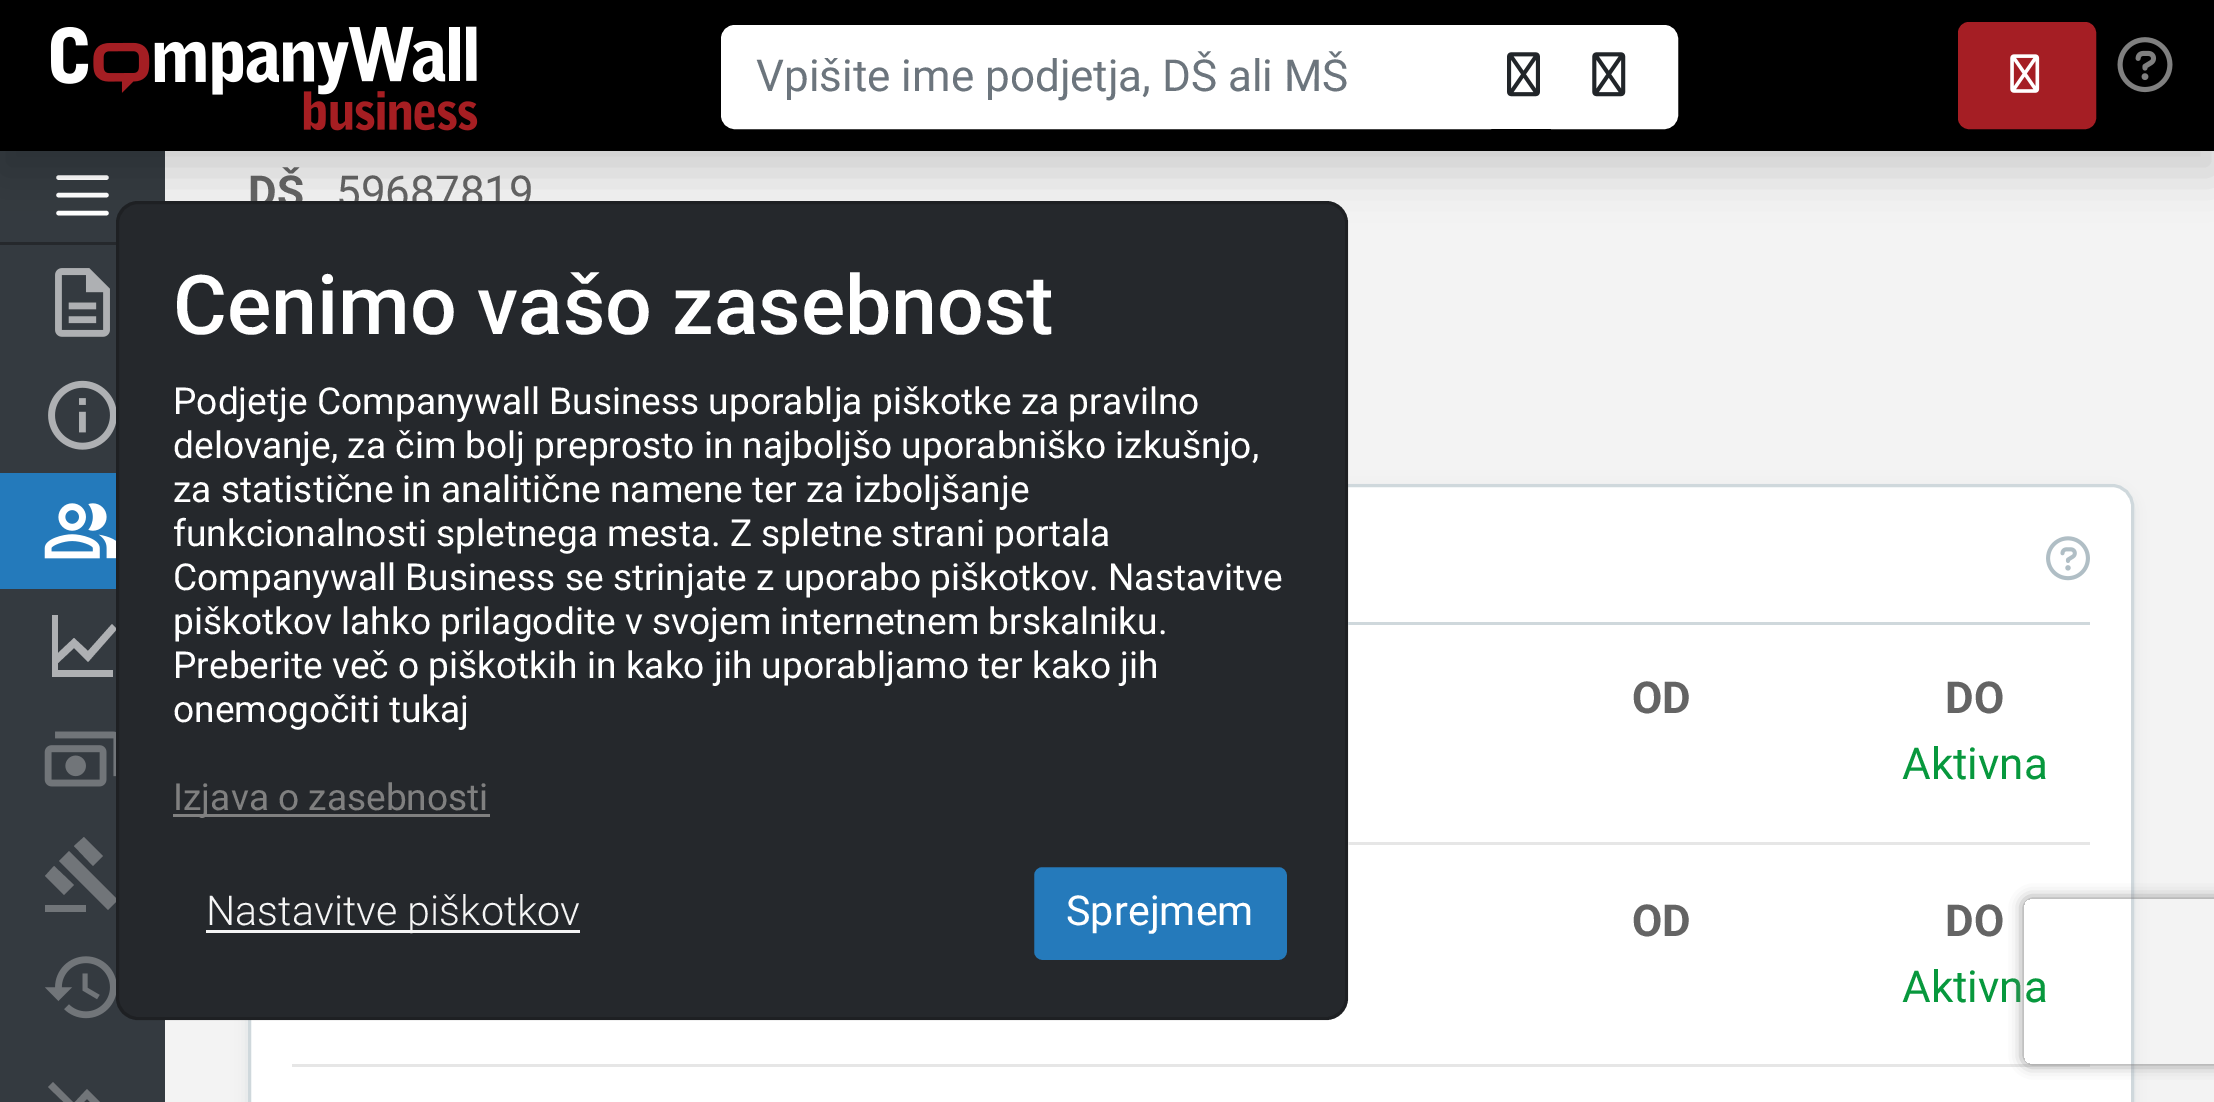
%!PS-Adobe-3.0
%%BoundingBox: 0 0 2214 1102
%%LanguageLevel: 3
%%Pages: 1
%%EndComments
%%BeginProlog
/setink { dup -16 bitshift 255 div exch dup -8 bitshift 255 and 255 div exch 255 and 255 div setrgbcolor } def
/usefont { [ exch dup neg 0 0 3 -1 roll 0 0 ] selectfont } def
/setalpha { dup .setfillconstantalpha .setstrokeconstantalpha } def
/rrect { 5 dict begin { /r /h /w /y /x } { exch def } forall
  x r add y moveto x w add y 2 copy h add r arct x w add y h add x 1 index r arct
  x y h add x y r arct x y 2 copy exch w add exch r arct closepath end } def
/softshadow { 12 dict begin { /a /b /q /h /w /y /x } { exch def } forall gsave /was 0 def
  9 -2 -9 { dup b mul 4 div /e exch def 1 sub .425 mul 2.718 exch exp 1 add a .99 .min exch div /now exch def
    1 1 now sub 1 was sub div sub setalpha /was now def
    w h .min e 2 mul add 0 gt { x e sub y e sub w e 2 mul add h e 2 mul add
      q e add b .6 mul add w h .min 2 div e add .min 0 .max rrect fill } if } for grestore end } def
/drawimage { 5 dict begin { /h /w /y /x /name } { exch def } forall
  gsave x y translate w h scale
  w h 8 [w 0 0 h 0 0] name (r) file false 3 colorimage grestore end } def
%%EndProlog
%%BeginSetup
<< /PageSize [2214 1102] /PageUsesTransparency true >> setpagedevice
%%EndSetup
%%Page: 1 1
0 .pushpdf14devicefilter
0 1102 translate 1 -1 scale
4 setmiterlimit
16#F3F3F3 setink
0 0 2214 1102 rectfill
16#343A40 setink
0 151 165 951 rectfill
16#FFFFFF setink
4.4 setlinewidth
1 setlinecap
58.5 177.5 moveto 106.5 177.5 lineto 58.5 195 moveto 106.5 195 lineto 58.5 213 moveto 106.5 213 lineto stroke
16#AEB0B3 setink
58 663 moveto 74 648 lineto 88 662 lineto 117 629 lineto 112 624 lineto 88 651 lineto 74 638 lineto 58 653 lineto 58 615 lineto 52 615 lineto 52 677 lineto 113 677 lineto 113 670 lineto 58 670 lineto closepath fill
16#717579 setink
45 905 moveto 86 905 lineto 86 912 lineto 45 912 lineto closepath 59 861 moveto 69 851 lineto 118 900 lineto 108 910 lineto closepath 84 837 moveto 103 856 lineto 93 866 lineto 74 846 lineto closepath 54 866 moveto 74 885 lineto 64 895 lineto 45 876 lineto closepath fill
/Roboto-Bold 44 usefont
16#646464 setink
248 207 moveto (DŠ) show
/Roboto-Regular 44 usefont
336 207 moveto (59687819) show
16#CFD8DC setink
250 492 1881 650 19 7 1 softshadow
16#FFFFFF setink
249.5 485.5 1883 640 20.5 rrect gsave fill grestore
16#CFD8DC setink
3 setlinewidth
0 setlinecap
stroke
16#25282C setink
116 201 1232 819 22 rrect fill
0.2 setalpha
16#000000 setink
117.5 202.5 1229 816 20.5 rrect stroke
1 setalpha
0 22 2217 151 0 22 0.15 softshadow
0 0 2214 151 rectfill
(img1.raw) 50 26 428 105 drawimage
16#FFFFFF setink
735 26.5 moveto 1489.5 26.5 lineto 1489.5 127.5 lineto 735 127.5 lineto 728 127.5 722.5 122 722.5 115 curveto 722.5 39 lineto 722.5 32 728 26.5 735 26.5 curveto closepath gsave fill grestore
stroke
16#6C757D setink
756 91 moveto (Vpišite ime podjetja, DŠ ali MŠ) show
16#FFFFFF setink
1491 25 60 104 rectfill
(img2.raw) 1507 52 33 45 drawimage
1552.5 26.5 moveto 1664 26.5 lineto 1671 26.5 1676.5 32 1676.5 39 curveto 1676.5 115 lineto 1676.5 122 1671 127.5 1664 127.5 curveto 1552.5 127.5 lineto closepath gsave fill grestore
stroke
(img3.raw) 1592 52 34 45 drawimage
16#A51E24 setink
1959.5 23.5 135 104 9.5 rrect gsave fill grestore
stroke
(img4.raw) 2010 54 30 39 drawimage
(img5.raw) 2117 37 56 56 drawimage
16#25282C setink
0 242 116 3 rectfill
(img6.raw) 55 268 55 69 drawimage
(img7.raw) 48 380 68 70 drawimage
16#247ABB setink
0 473 116 116 rectfill
(img8.raw) 44 503 72 56 drawimage
(img9.raw) 44 731 72 56 drawimage
(img10.raw) 45 956 71 63 drawimage
16#717579 setink
96 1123 moveto 104 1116 lineto 87 1099 lineto 74 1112 lineto 48 1087 lineto 53 1082 lineto 74 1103 lineto 87 1089 lineto 109 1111 lineto 117 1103 lineto 117 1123 lineto closepath fill
16#CFD8DC setink
1348 622 742 3 rectfill
(img11.raw) 2046 536 44 45 drawimage
/Roboto-Bold 44 usefont
16#646464 setink
1632 713 moveto (OD) show
1945 713 moveto (DO) show
/Roboto-Regular 44 usefont
16#07983D setink
1902 779 moveto (Aktivna) show
16#E6E6E6 setink
1348 842 742 3 rectfill
/Roboto-Bold 44 usefont
16#646464 setink
1632 936 moveto (OD) show
1945 936 moveto (DO) show
/Roboto-Regular 44 usefont
16#07983D setink
1902 1002 moveto (Aktivna) show
16#E6E6E6 setink
292 1064 1798 3 rectfill
/Roboto-Medium 82.5 usefont
16#FFFFFF setink
173 334 moveto (Cenimo vašo zasebnost) show
/Roboto-Regular 37.1 usefont
[
    [(Podjetje Companywall Business uporablja piškotke za pravilno) 173 414]
    [(delovanje, za čim bolj preprosto in najboljšo uporabniško izkušnjo,) 173 458]
    [(za statistične in analitične namene ter za izboljšanje) 173 502]
    [(funkcionalnosti spletnega mesta. Z spletne strani portala) 173 546]
    [(Companywall Business se strinjate z uporabo piškotkov. Nastavitve) 173 590]
    [(piškotkov lahko prilagodite v svojem internetnem brskalniku.) 173 634]
    [(Preberite več o piškotkih in kako jih uporabljamo ter kako jih) 173 678]
    [(onemogočiti tukaj) 173 722]
] { aload pop moveto show } forall
16#808080 setink
173 814 317 3 rectfill
173 810 moveto (Izjava o zasebnosti) show
16#F5F5F5 setink
206 930 374 3 rectfill
/Roboto-Light 41.25 usefont
206 925 moveto (Nastavitve piškotkov) show
16#257ABB setink
1032.5 865.5 256 96 9.5 rrect gsave fill grestore
16#25282C setink
stroke
/Roboto-Regular 41.25 usefont
16#FFFFFF setink
1066 925 moveto (Sprejmem) show
gsave
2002 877 moveto 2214 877 lineto 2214 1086 lineto 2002 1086 lineto closepath 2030 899 moveto 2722 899 lineto 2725.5 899 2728 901.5 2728 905 curveto 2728 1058 lineto 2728 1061.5 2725.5 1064 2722 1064 curveto 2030 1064 lineto 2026.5 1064 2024 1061.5 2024 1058 curveto 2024 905 lineto 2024 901.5 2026.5 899 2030 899 curveto closepath eoclip newpath
16#808080 setink
2024 899 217 165 6 7 1 softshadow
grestore
.poppdf14devicefilter showpage
%%EOF
